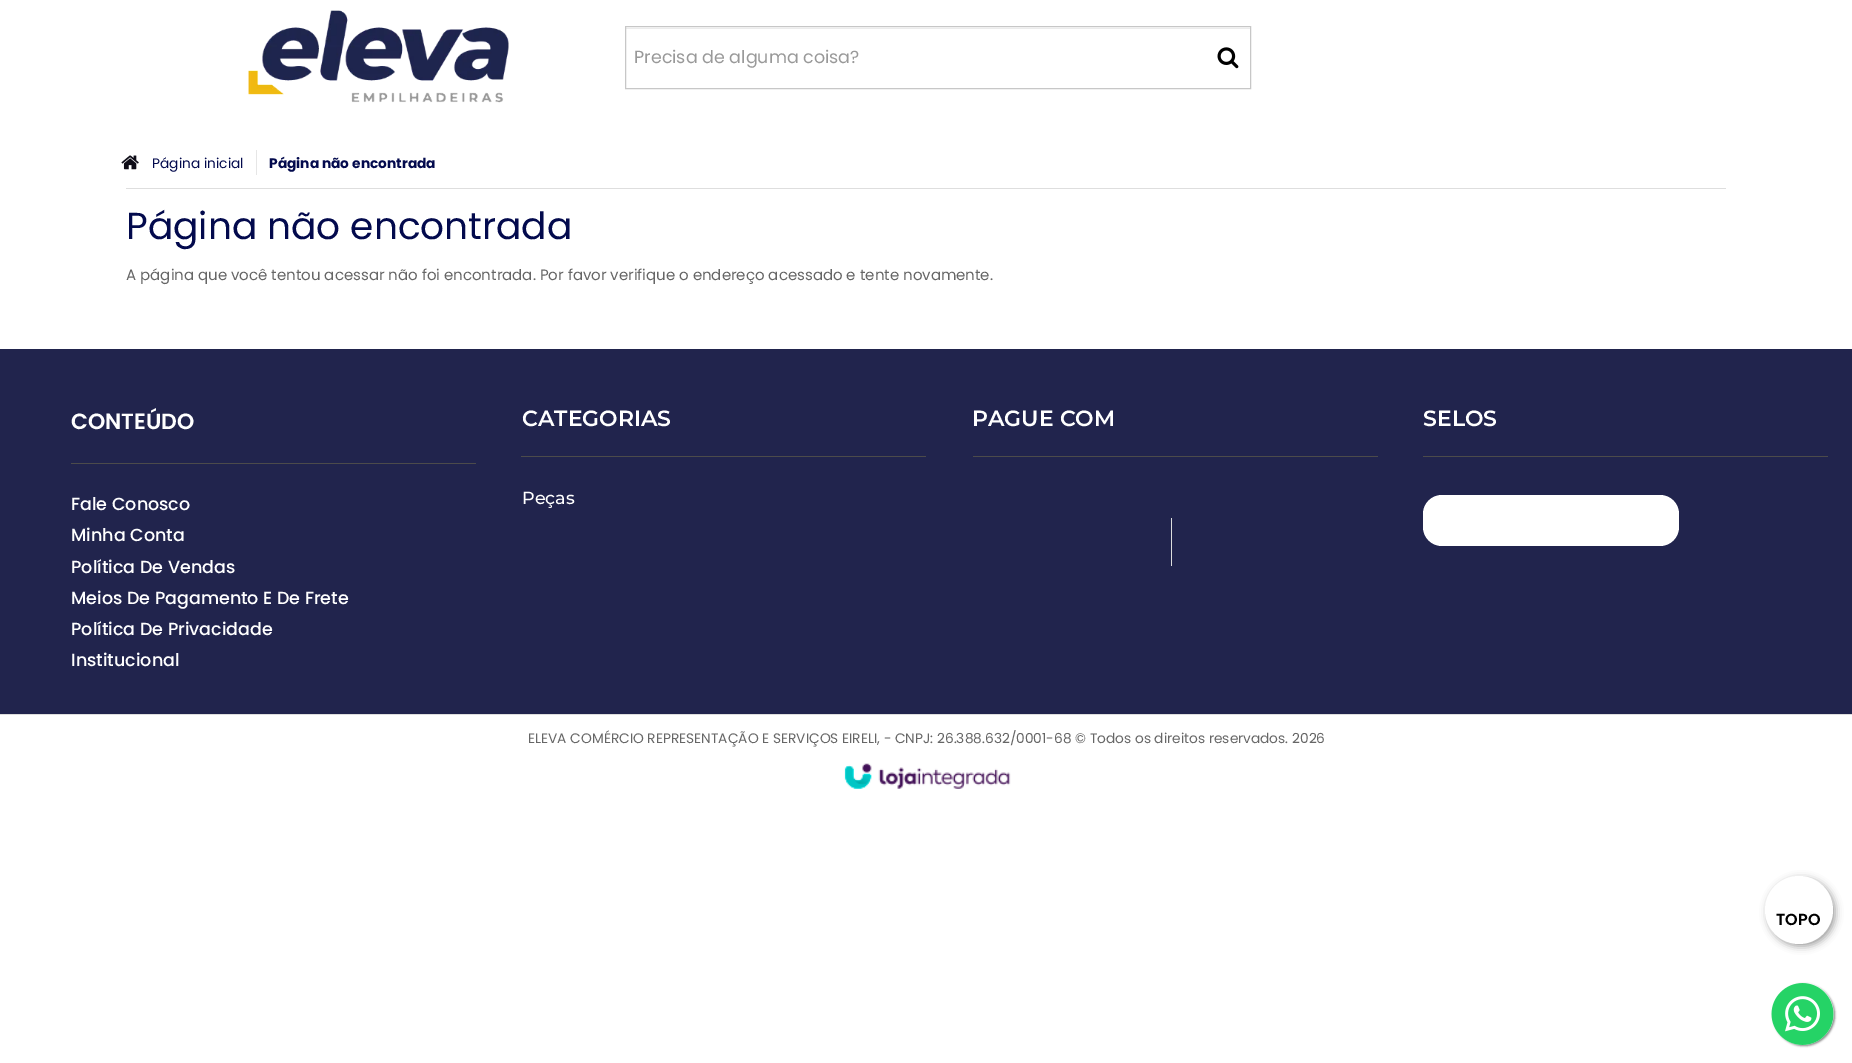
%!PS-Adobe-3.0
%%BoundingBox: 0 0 1852 1063
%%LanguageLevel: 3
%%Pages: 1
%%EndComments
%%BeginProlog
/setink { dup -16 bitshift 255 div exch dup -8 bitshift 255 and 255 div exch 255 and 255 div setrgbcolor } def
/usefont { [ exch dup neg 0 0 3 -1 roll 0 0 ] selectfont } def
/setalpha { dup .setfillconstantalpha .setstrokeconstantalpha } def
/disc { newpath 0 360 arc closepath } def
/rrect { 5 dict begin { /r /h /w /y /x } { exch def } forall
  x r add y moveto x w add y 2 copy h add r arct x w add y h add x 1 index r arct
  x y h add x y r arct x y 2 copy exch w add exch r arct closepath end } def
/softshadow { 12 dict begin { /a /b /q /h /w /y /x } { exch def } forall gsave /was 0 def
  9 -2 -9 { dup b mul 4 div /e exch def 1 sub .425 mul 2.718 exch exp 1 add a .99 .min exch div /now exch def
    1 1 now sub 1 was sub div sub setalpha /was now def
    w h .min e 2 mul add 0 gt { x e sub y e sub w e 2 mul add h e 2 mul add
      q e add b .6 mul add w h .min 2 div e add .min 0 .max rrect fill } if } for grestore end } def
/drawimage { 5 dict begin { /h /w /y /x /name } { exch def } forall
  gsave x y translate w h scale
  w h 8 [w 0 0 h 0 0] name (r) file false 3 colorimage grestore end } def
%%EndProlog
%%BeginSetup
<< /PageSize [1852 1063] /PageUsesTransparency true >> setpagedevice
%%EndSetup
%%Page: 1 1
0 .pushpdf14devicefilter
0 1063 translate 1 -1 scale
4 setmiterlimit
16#FFFFFF setink
0 0 1852 1063 rectfill
(img1.raw) 248 10 261 93 drawimage
16#ECECEC setink
626 28 624 1 rectfill
16#C7C7C7 setink
625.5 26.5 625 62 rectstroke
/Poppins-Regular 17.5 usefont
16#999999 setink
634 63 moveto (Precisa de alguma coisa?) show
(img2.raw) 1217 47 22 22 drawimage
16#DEDEDE setink
126 188 1600 1 rectfill
(img3.raw) 121 155 18 15 drawimage
/Poppins-Regular 13.75 usefont
16#030A4D setink
152 168 moveto (Página inicial) show
16#E6E6E6 setink
256 150 1 25 rectfill
/Poppins-Bold 13.75 usefont
16#030A4D setink
269 168 moveto (Página não encontrada) show
/Poppins-Regular 37.5 usefont
126 239 moveto (Página não encontrada) show
/Poppins-Regular 15 usefont
16#666666 setink
126 280 moveto (A página que você tentou acessar não foi encontrada. Por favor verifique o endereço acessado e tente novamente.) show
16#21244D setink
0 349 1852 365 rectfill
16#4C4B4B setink
71 463 405 1 rectfill
/Poppins-SemiBold 22 usefont
16#FFFFFF setink
71 429 moveto (CONTEÚDO) show
/Poppins-Medium 17.5 usefont
[
    [(Fale Conosco) 71 510]
    [(Minha Conta) 71 541]
    [(Política De Vendas) 71 573]
    [(Meios De Pagamento E De Frete) 71 604]
    [(Política De Privacidade) 71 635]
    [(Institucional) 71 666]
] { aload pop moveto show } forall
16#4C4B4B setink
521 456 405 1 rectfill
/Montserrat-SemiBold 22 usefont
16#FFFFFF setink
522 426 moveto (CATEGORIAS) show
/Montserrat-Medium 17.5 usefont
522 504 moveto (Peças) show
16#4C4B4B setink
973 456 405 1 rectfill
/Montserrat-SemiBold 22 usefont
16#FFFFFF setink
972 426 moveto (PAGUE COM) show
16#DDDDDD setink
1171 518 1 48 rectfill
16#4C4B4B setink
1423 456 405 1 rectfill
16#FFFFFF setink
1423 426 moveto (SELOS) show
1423 495 256 51 19 rrect fill
16#DDDDDD setink
0 714 1852 1 rectfill
/Poppins-Regular 13.75 usefont
16#666666 setink
528 743 moveto (ELEVA COMÉRCIO REPRESENTAÇÃO E SERVIÇOS EIRELI, - CNPJ: 26.388.632/0001-68 © Todos os direitos reservados. 2026) show
(img4.raw) 844 763 167 26 drawimage
16#000000 setink
1768 879 67 67 33.5 4 0.4 softshadow
16#FFFFFF setink
1799 910 34 disc fill
/Poppins-SemiBold 16 usefont
16#000000 setink
1776 925 moveto (TOPO) show
16#888888 setink
1773 984 62 62 31 1 1 softshadow
(img5.raw) 1771 983 63 62 drawimage
.poppdf14devicefilter showpage
%%EOF
